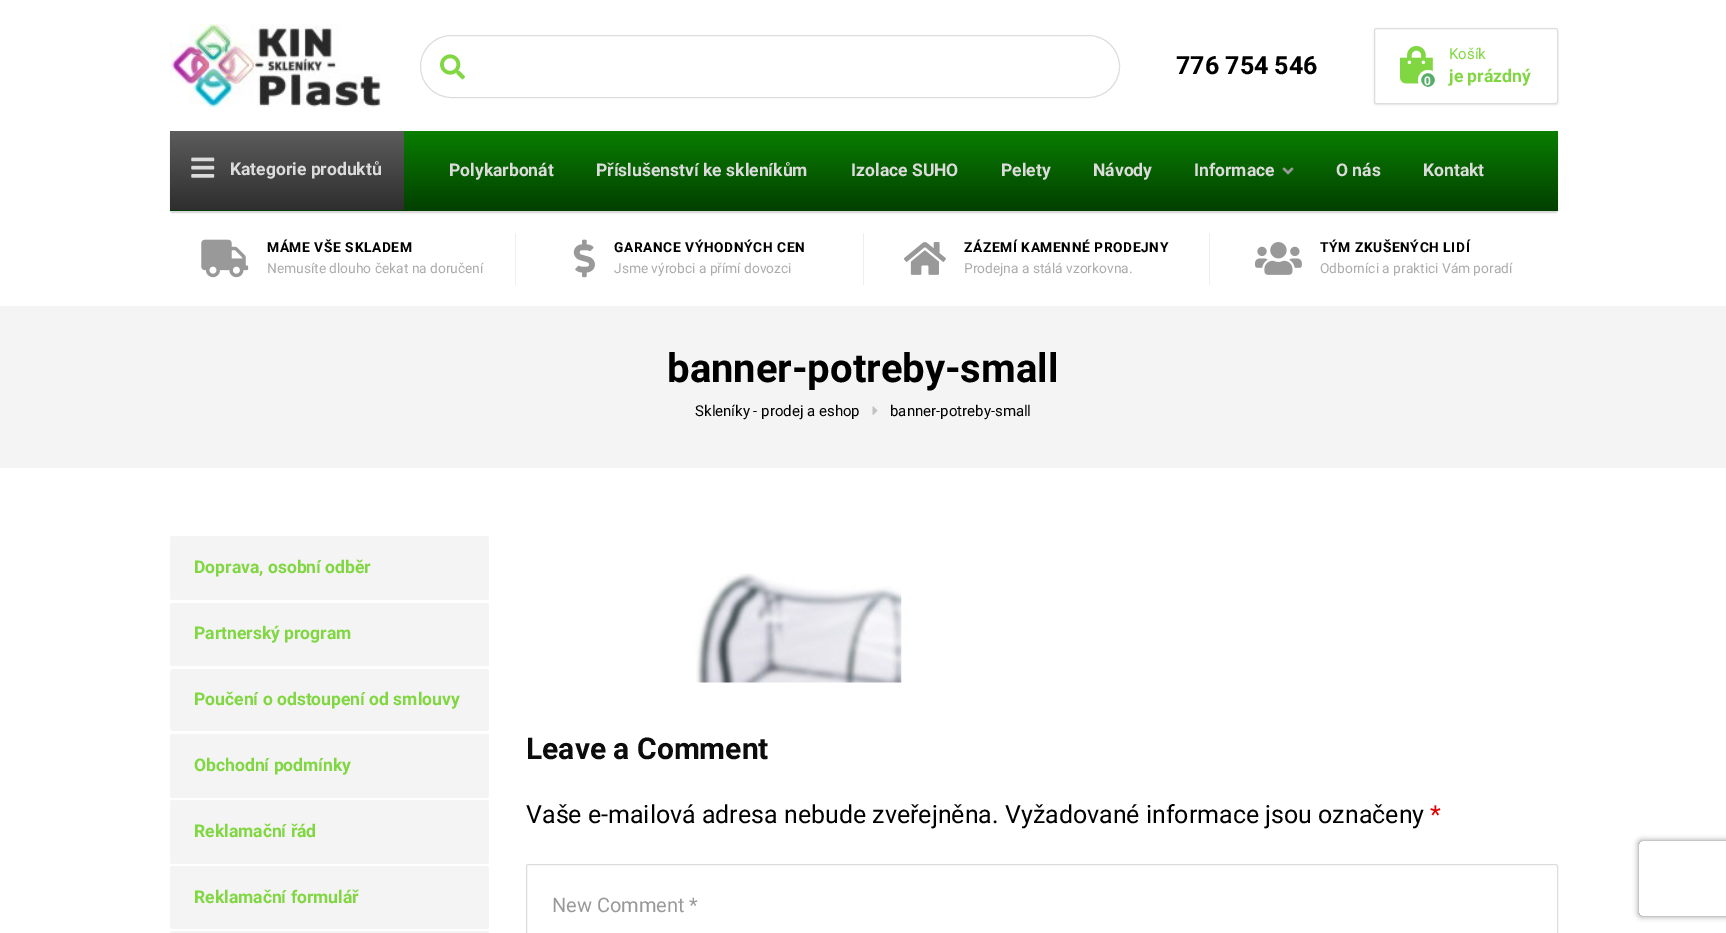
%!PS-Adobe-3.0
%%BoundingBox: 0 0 1726 933
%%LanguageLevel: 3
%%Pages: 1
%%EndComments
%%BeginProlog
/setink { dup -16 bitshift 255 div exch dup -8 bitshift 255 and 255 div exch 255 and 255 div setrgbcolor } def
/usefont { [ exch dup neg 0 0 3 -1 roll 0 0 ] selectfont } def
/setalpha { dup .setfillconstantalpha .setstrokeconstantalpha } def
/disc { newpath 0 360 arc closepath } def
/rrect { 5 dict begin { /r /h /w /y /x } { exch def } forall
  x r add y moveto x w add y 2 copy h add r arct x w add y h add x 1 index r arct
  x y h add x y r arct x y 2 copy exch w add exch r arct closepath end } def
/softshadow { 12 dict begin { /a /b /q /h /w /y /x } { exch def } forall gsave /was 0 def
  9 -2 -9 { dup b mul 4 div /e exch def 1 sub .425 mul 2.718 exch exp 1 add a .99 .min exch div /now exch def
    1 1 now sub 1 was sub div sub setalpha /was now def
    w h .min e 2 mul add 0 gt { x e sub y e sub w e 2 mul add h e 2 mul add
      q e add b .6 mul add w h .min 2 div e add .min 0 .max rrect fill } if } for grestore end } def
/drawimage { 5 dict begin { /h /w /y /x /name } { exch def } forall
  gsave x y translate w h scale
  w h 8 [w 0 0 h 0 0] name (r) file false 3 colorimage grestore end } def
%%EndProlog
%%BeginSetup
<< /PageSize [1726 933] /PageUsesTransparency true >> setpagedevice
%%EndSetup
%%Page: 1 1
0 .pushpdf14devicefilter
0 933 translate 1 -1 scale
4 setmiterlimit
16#FFFFFF setink
0 0 1726 933 rectfill
(img1.raw) 170 23 211 85 drawimage
16#DDDDDD setink
420.5 35.5 699 62 31 rrect stroke
(img2.raw) 440 54 25 26 drawimage
/Roboto-Bold 25 usefont
16#000000 setink
1176 74 moveto (776 754 546) show
1374 29 184 76 2.5 1 0.1 softshadow
16#FFFFFF setink
1374.5 28.5 183 75 2 rrect gsave fill grestore
16#DDDDDD setink
stroke
(img3.raw) 1400 45 33 39 drawimage
16#57AD68 setink
1428 80 8.5 disc gsave fill grestore
16#FFFFFF setink
3 setlinewidth
stroke
/Roboto-Bold 12 usefont
1424 85 moveto (0) show
/Roboto-Regular 15 usefont
16#81D742 setink
1449 59 moveto (Košík) show
/Roboto-Bold 17.5 usefont
1449 82 moveto (je prázdný) show
16#999999 setink
170 133 1388 80 2.5 0.5 0.38 softshadow
gsave 170 131 1388 80 2.5 rrect clip newpath
<< /ShadingType 2 /ColorSpace /DeviceRGB /Coords [864 131 864 211] /Extend [true true] /Function << /FunctionType 3 /Domain [0 1] /Functions [<< /FunctionType 2 /Domain [0 1] /C0 [0.035 0.49 0] /C1 [0.035 0.49 0] /N 1 >> << /FunctionType 2 /Domain [0 1] /C0 [0.035 0.49 0] /C1 [0.008 0.247 0] /N 1 >>] /Bounds [0.02] /Encode [0 1 0 1] >> >> shfill grestore
gsave 172.5 131 moveto 404 131 lineto 404 210 lineto 172.5 210 lineto 171 210 170 209 170 207.5 curveto 170 133.5 lineto 170 132 171 131 172.5 131 curveto closepath clip newpath
<< /ShadingType 2 /ColorSpace /DeviceRGB /Coords [287 131 287 210] /Extend [true true] /Function << /FunctionType 2 /Domain [0 1] /C0 [0.361 0.361 0.361] /C1 [0.18 0.18 0.18] /N 1 >> >> shfill grestore
(img4.raw) 191 157 24 21 drawimage
16#DBDBDB setink
[
    [(Kategorie produktů) 230 175]
    [(Polykarbonát) 449 176]
    [(Příslušenství ke skleníkům) 596 176]
    [(Izolace SUHO) 851 176]
    [(Pelety) 1001 176]
    [(Návody) 1093 176]
    [(Informace) 1194 176]
] { aload pop moveto show } forall
(img5.raw) 1282 167 12 8 drawimage
1336 176 moveto (O nás) show
1423 176 moveto (Kontakt) show
(img6.raw) 201 239 48 39 drawimage
/Roboto-Bold 13.75 usefont
16#000000 setink
267 252 moveto 0.6 0 (MÁME VŠE SKLADEM) ashow
/Roboto-Regular 13.75 usefont
16#ABABAB setink
267 273 moveto (Nemusíte dlouho čekat na doručení) show
16#EEEEEE setink
515 233 1 52 rectfill
(img7.raw) 573 239 22 39 drawimage
/Roboto-Bold 13.75 usefont
16#000000 setink
614 252 moveto 0.6 0 (GARANCE VÝHODNÝCH CEN) ashow
/Roboto-Regular 13.75 usefont
16#ABABAB setink
614 273 moveto (Jsme výrobci a přímí dovozci) show
16#EEEEEE setink
863 233 1 52 rectfill
(img8.raw) 903 242 43 33 drawimage
/Roboto-Bold 13.75 usefont
16#000000 setink
964 252 moveto 0.6 0 (ZÁZEMÍ KAMENNÉ PRODEJNY) ashow
/Roboto-Regular 13.75 usefont
16#ABABAB setink
964 273 moveto (Prodejna a stálá vzorkovna.) show
16#EEEEEE setink
1209 233 1 52 rectfill
(img9.raw) 1255 242 47 33 drawimage
/Roboto-Bold 13.75 usefont
16#000000 setink
1320 252 moveto 0.6 0 (TÝM ZKUŠENÝCH LIDÍ) ashow
/Roboto-Regular 13.75 usefont
16#ABABAB setink
1320 273 moveto (Odborníci a praktici Vám poradí) show
16#F4F4F4 setink
0 306 1726 162 rectfill
/Roboto-Bold 40 usefont
16#000000 setink
667 382 moveto (banner-potreby-small) show
/Roboto-Regular 15 usefont
695 416 moveto (Skleníky - prodej a eshop) show
(img10.raw) 872 406 6 9 drawimage
890 416 moveto (banner-potreby-small) show
16#F4F4F4 setink
170 536 319 64 2.5 rrect fill
/Roboto-Bold 17.5 usefont
16#81D742 setink
194 573 moveto (Doprava, osobní odběr) show
16#F4F4F4 setink
170 603 319 63 2.5 rrect fill
16#81D742 setink
194 639 moveto (Partnerský program) show
16#F4F4F4 setink
170 669 319 62 2.5 rrect fill
16#81D742 setink
194 705 moveto (Poučení o odstoupení od smlouvy) show
16#F4F4F4 setink
170 734 319 64 2.5 rrect fill
16#81D742 setink
194 771 moveto (Obchodní podmínky) show
16#F4F4F4 setink
170 800 319 64 2.5 rrect fill
16#81D742 setink
194 837 moveto (Reklamační řád) show
16#F4F4F4 setink
170 866 319 63 2.5 rrect fill
16#81D742 setink
194 903 moveto (Reklamační formulář) show
16#F4F4F4 setink
170 931 319 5 2.5 rrect fill
(img11.raw) 696 573 206 110 drawimage
/Roboto-Bold 30 usefont
16#0C0C0C setink
526 759 moveto (Leave a Comment) show
/Roboto-Regular 25 usefont
16#000000 setink
526 823 moveto (Vaše e-mailová adresa nebude zveřejněna. Vyžadované informace jsou označeny) show
16#E10000 setink
1430 823 moveto (*) show
16#DDDDDD setink
1 setlinewidth
526.5 864.5 1031 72 2 rrect stroke
/Roboto-Regular 20 usefont
16#999999 setink
552 912 moveto (New Comment *) show
gsave
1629 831 moveto 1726 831 lineto 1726 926 lineto 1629 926 lineto closepath 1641.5 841 moveto 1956.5 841 lineto 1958 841 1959 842 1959 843.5 curveto 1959 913.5 lineto 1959 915 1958 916 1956.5 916 curveto 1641.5 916 lineto 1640 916 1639 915 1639 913.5 curveto 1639 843.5 lineto 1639 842 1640 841 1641.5 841 curveto closepath eoclip newpath
16#808080 setink
1639 841 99 75 2.5 3 1 softshadow
grestore
.poppdf14devicefilter showpage
%%EOF
